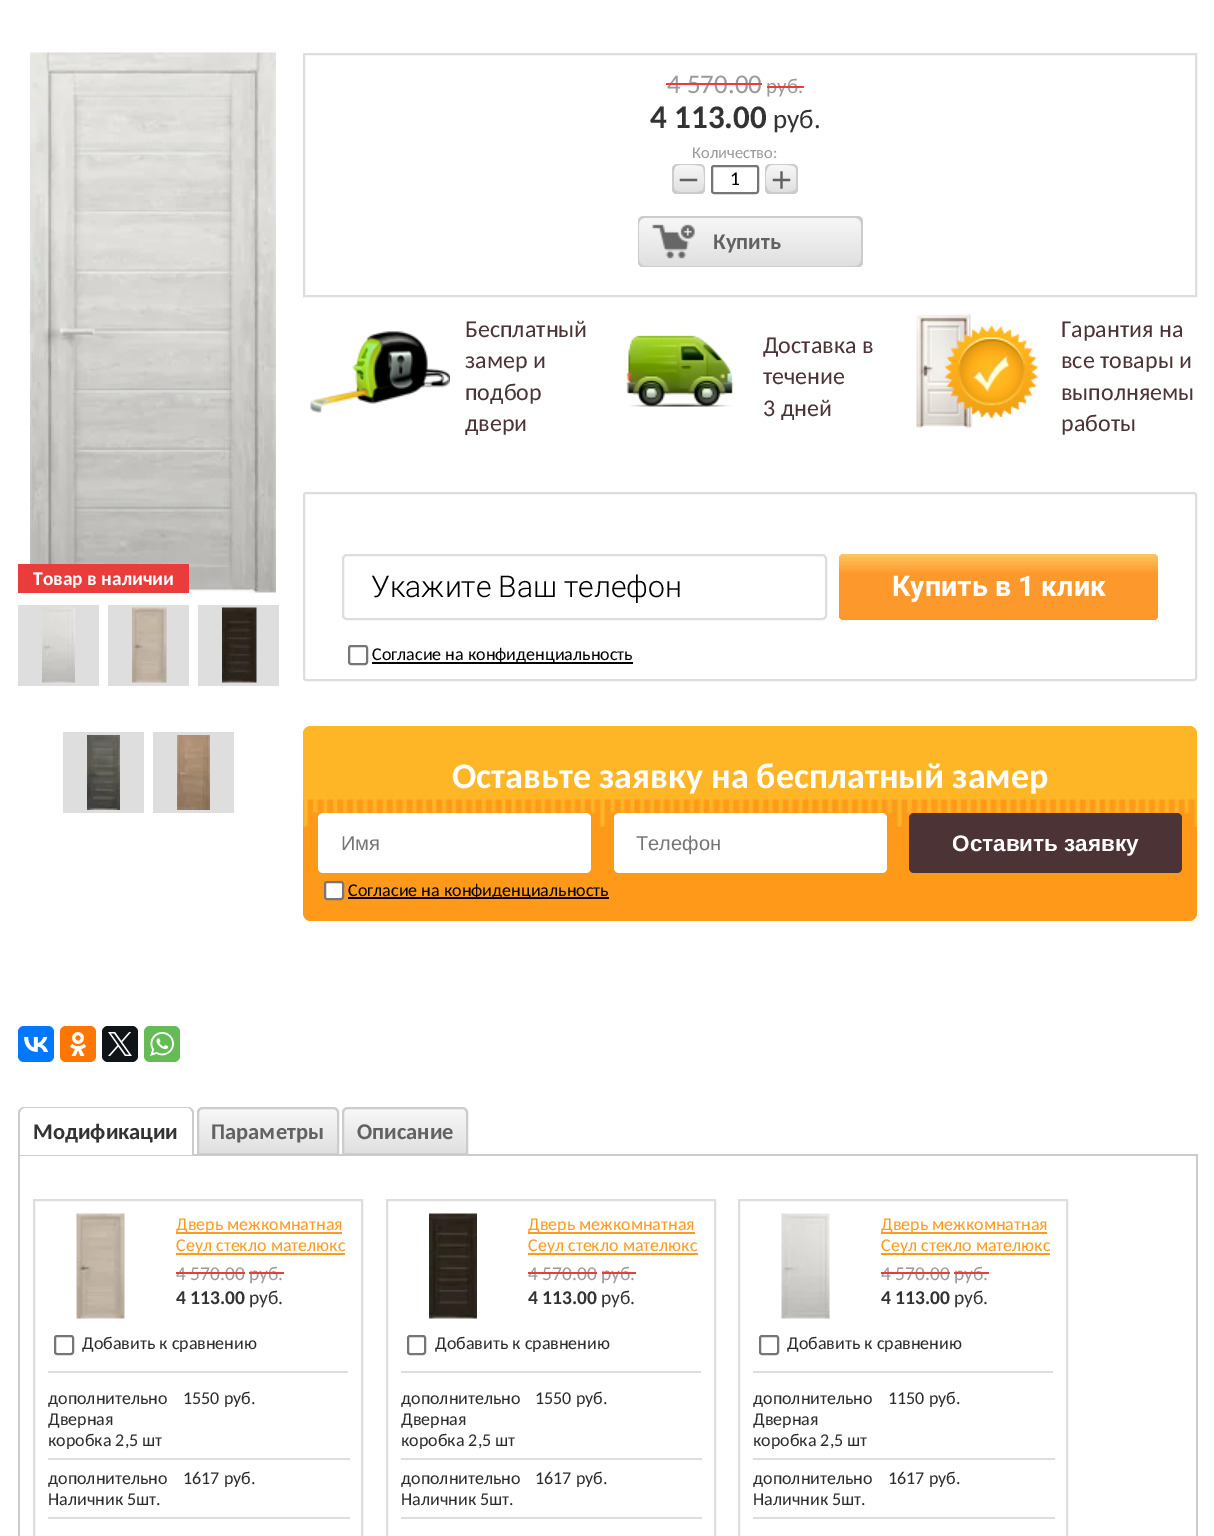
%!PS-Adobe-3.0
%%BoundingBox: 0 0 1214 1536
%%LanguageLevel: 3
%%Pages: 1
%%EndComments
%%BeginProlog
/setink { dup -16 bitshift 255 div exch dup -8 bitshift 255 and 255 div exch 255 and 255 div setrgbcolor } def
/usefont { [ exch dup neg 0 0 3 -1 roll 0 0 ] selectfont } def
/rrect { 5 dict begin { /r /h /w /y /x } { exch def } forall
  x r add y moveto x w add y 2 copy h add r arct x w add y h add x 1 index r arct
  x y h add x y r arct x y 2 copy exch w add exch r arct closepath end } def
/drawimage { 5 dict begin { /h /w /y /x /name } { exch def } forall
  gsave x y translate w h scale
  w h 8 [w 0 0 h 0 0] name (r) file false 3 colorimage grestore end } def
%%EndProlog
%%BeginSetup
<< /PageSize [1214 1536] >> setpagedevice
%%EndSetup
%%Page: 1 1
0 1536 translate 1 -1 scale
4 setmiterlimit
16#FFFFFF setink
0 0 1214 1536 rectfill
(img1.raw) 30 52 246 541 drawimage
16#EB3C3C setink
18 564 171 29 rectfill
/Carlito-Bold 19.5 usefont
16#FFFFFF setink
33 585 moveto (Товар в наличии) show
16#DEDEDE setink
18 605 81 81 rectfill
(img2.raw) 42 607 33 76 drawimage
108 605 81 81 rectfill
(img3.raw) 132 607 35 76 drawimage
198 605 81 81 rectfill
(img4.raw) 222 607 35 76 drawimage
63 732 81 81 rectfill
(img5.raw) 87 735 33 75 drawimage
153 732 81 81 rectfill
(img6.raw) 177 735 33 75 drawimage
2 setlinewidth
304 54 892 242 rectstroke
/Carlito-Regular 27 usefont
16#9A9A9A setink
667 93 moveto (4 570.00) show
16#EB3C3C setink
666 83 96 2 rectfill
/Carlito-Regular 21 usefont
16#9A9A9A setink
766 93 moveto (руб.) show
16#EB3C3C setink
767 86 37 2 rectfill
/Carlito-Bold 33 usefont
16#333333 setink
650 128 moveto (4 113.00) show
/Carlito-Regular 27 usefont
773 128 moveto (руб.) show
/Carlito-Regular 16.5 usefont
16#9A9A9A setink
692 158 moveto (Количество:) show
gsave 672 164 33 30 6 rrect clip newpath
<< /ShadingType 2 /ColorSpace /DeviceRGB /Coords [689 164 689 194] /Extend [true true] /Function << /FunctionType 2 /Domain [0 1] /C0 [0.973 0.973 0.973] /C1 [0.875 0.875 0.875] /N 1 >> >> shfill grestore
16#CCCCCC setink
675 165 moveto 673 166 672 168 672 170 curveto 672 188 lineto 672 191.5 674.5 194 678 194 curveto 699 194 lineto 701.5 194 703.5 192.5 704.5 190.5 curveto 701 193 692 192 688.5 192 curveto 685.5 192 681 192.5 678 191.5 curveto 676 191 lineto 674.5 189.5 674 187.5 674 186 curveto 674 169.5 lineto 674 168 674 166.5 675 165 curveto closepath fill
676 165 moveto 681 165 698 164 702 166.5 curveto 703 167.5 703.5 168 703.5 169.5 curveto 704 171 704.5 187 704 189.5 curveto 704 190.5 703.5 192 702.5 193 curveto 704 192 705 190 705 188 curveto 705 170 lineto 705 166.5 702.5 164 699 164 curveto 678 164 lineto 676.5 164 675.5 164.5 674.5 165 curveto closepath fill
673 191 moveto 674 193 676 194 678 194 curveto 699 194 lineto 702.5 194 705 191.5 705 188 curveto 705 170 lineto 705 168.5 704.5 167.5 703.5 166 curveto 704.5 168.5 704.5 185.5 703.5 187.5 curveto 703.5 189 703 189.5 702 190.5 curveto 698 193 689.5 192 685 192 curveto 679 192 lineto 677 192 674.5 192.5 673 191 curveto closepath fill
680 165 moveto 697 165 lineto 700 165 702 165.5 703.5 166 curveto 702.5 164.5 700.5 164 699 164 curveto 678 164 lineto 674.5 164 672 166.5 672 170 curveto 672 188 lineto 672 190.5 673.5 193 676 193.5 curveto 674.5 192.5 674 190.5 674 188.5 curveto 674 171 lineto 675 167.5 lineto 676 165.5 678 165 680 165 curveto closepath fill
/LiberationSans-Regular 36 usefont
16#626262 setink
678 192 moveto (−) show
16#767676 setink
712 166 46 27 2 rrect stroke
/Carlito-Regular 19.5 usefont
16#000000 setink
730 185 moveto (1) show
gsave 765 164 33 30 6 rrect clip newpath
<< /ShadingType 2 /ColorSpace /DeviceRGB /Coords [782 164 782 194] /Extend [true true] /Function << /FunctionType 2 /Domain [0 1] /C0 [0.973 0.973 0.973] /C1 [0.875 0.875 0.875] /N 1 >> >> shfill grestore
16#CCCCCC setink
767 165.5 moveto 766 166.5 765 168 765 170 curveto 765 188 lineto 765 191.5 767.5 194 771 194 curveto 792 194 lineto 794.5 194 796.5 192.5 797.5 190.5 curveto 793.5 193 785 192 781 192 curveto 778 192 772.5 192.5 770 191.5 curveto 768.5 190.5 lineto 767 189.5 766.5 187 766 185 curveto 765.5 181.5 765.5 168.5 767 165.5 curveto closepath fill
770 165 moveto 787 165 lineto 797 165 796.5 168.5 796 175 curveto 796 185 lineto 796.5 189 796.5 192 794.5 193.5 curveto 796.5 192.5 798 190.5 798 188 curveto 798 170 lineto 798 166.5 795.5 164 792 164 curveto 771 164 lineto 769.5 164 768 164.5 766.5 166 curveto 767.5 165.5 768.5 165 770 165 curveto closepath fill
765.5 190 moveto 766 192.5 768.5 194 771 194 curveto 792 194 lineto 795.5 194 798 191.5 798 188 curveto 798 170 lineto 798 168 797 166.5 796 165.5 curveto 796.5 167 796.5 169 796 172 curveto 796 182 lineto 796.5 188.5 797 192 787 192 curveto 770 192 lineto 767.5 192 766 191 765.5 190 curveto closepath fill
772 165 moveto 790 165 lineto 793 165 795 165.5 796.5 166 curveto 795 164.5 793.5 164 792 164 curveto 771 164 lineto 767.5 164 765 166.5 765 170 curveto 765 188 lineto 765 190 766 192 768 193 curveto 767 192 766.5 190.5 766.5 189.5 curveto 765.5 186 765.5 175 766 172 curveto 767.5 168 lineto 768.5 166 770 165 772 165 curveto closepath fill
/LiberationSans-Regular 36 usefont
16#626262 setink
771 192 moveto (+) show
gsave 638 216 225 51 6 rrect clip newpath
<< /ShadingType 2 /ColorSpace /DeviceRGB /Coords [750 216 750 267] /Extend [true true] /Function << /FunctionType 2 /Domain [0 1] /C0 [0.973 0.973 0.973] /C1 [0.875 0.875 0.875] /N 1 >> >> shfill grestore
16#CCCCCC setink
639 218 moveto 639 219 638 221 638 222 curveto 638 261 lineto 638 264 641 267 644 267 curveto 857 267 lineto 859 267 861 266 862 264 curveto 861 265 859 266 858 266 curveto 645 266 lineto 642 266 639 263 639 260 curveto closepath fill
642 218 moveto 855 218 lineto 858 218 861 220 861 224 curveto 861 262 lineto 861 264 860 266 859 267 curveto 861 266 863 264 863 261 curveto 863 222 lineto 863 219 860 216 857 216 curveto 644 216 lineto 642 216 640 217 639 219 curveto closepath fill
640 266 moveto 641 266 643 267 644 267 curveto 857 267 lineto 860 267 863 264 863 261 curveto 863 222 lineto 863 220 862 218 860 217 curveto 861 218 861 219 861 220 curveto 861 260 lineto 861 263 858 266 855 266 curveto closepath fill
645 218 moveto 858 218 lineto 860 218 862 219 863 220 curveto 862 218 860 216 857 216 curveto 644 216 lineto 641 216 638 219 638 222 curveto 638 261 lineto 638 263 639 264 640 265 curveto 639 265 639 263 639 262 curveto 639 224 lineto 639 220 642 218 645 218 curveto closepath fill
(img7.raw) 652 224 43 35 drawimage
/Carlito-Bold 22.5 usefont
16#626262 setink
713 249 moveto (Купить) show
(img8.raw) 310 331 140 82 drawimage
/Carlito-Regular 24 usefont
16#4C3336 setink
[
    [(Бесплатный) 465 337]
    [(замер и) 465 368]
    [(подбор) 465 400]
    [(двери) 465 431]
] { aload pop moveto show } forall
(img9.raw) 626 335 108 72 drawimage
[
    [(Доставка в) 763 353]
    [(течение) 763 384]
    [(3 дней) 763 416]
] { aload pop moveto show } forall
(img10.raw) 916 313 123 115 drawimage
[
    [(Гарантия на) 1061 337]
    [(все товары и) 1061 368]
    [(выполняемы) 1061 400]
    [(работы) 1061 431]
] { aload pop moveto show } forall
16#DDDDDD setink
304 493 892 187 2 rrect stroke
343 555 483 64 4 rrect stroke
/Roboto-Light 30 usefont
16#000000 setink
371 597 moveto (Укажите Ваш телефон) show
gsave 839 554 319 66 5 rrect clip newpath
<< /ShadingType 2 /ColorSpace /DeviceRGB /Coords [998 554 998 620] /Extend [true true] /Function << /FunctionType 3 /Domain [0 1] /Functions [<< /FunctionType 2 /Domain [0 1] /C0 [0.996 0.784 0.373] /C1 [0.992 0.596 0.176] /N 1 >> << /FunctionType 2 /Domain [0 1] /C0 [0.992 0.596 0.176] /C1 [0.992 0.596 0.176] /N 1 >>] /Bounds [0.3] /Encode [0 1 0 1] >> >> shfill grestore
/Roboto-Bold 28.5 usefont
16#FFFFFF setink
892 596 moveto (Купить в 1 клик) show
16#767676 setink
349 646 18 18 2 rrect stroke
16#000000 setink
372 662 261 2 rectfill
/Carlito-Regular 18 usefont
372 660 moveto (Согласие на конфиденциальность) show
(img11.raw) 303 726 894 195 drawimage
/Carlito-Bold 36 usefont
16#FFFFFF setink
452 788 moveto (Оставьте заявку на бесплатный замер) show
318 813 273 60 5 rrect fill
/LiberationSans-Regular 20 usefont
16#757575 setink
341 850 moveto (Имя) show
16#FFFFFF setink
614 813 273 60 5 rrect fill
16#757575 setink
636 850 moveto (Телефон) show
16#4C3336 setink
909 813 273 60 5 rrect fill
/LiberationSans-Bold 22.5 usefont
16#FFFFFF setink
952 851 moveto (Оставить заявку) show
325 882 18 17 2 rrect gsave fill grestore
16#767676 setink
stroke
16#000000 setink
348 897 261 2 rectfill
/Carlito-Regular 18 usefont
348 896 moveto (Согласие на конфиденциальность) show
16#0077FF setink
18 1026 36 36 6 rrect fill
(img12.raw) 24 1036 24 16 drawimage
16#FF7700 setink
60 1026 36 36 6 rrect fill
(img13.raw) 70 1032 17 24 drawimage
16#0F1419 setink
102 1026 36 36 6 rrect fill
(img14.raw) 108 1032 24 24 drawimage
16#65BC54 setink
144 1026 36 36 6 rrect fill
(img15.raw) 150 1032 24 24 drawimage
16#CCCCCC setink
18 1154 1179 2 rectfill
18 1154 2 382 rectfill
16#FFFFFF setink
24 1107 moveto 188 1107 lineto 191.5 1107 194 1109.5 194 1113 curveto 194 1155 lineto 18 1155 lineto 18 1113 lineto 18 1109.5 20.5 1107 24 1107 curveto closepath fill
16#CCCCCC setink
24 1107 moveto 188 1107 lineto 191 1107 194 1110 194 1113 curveto 194 1155 lineto 18 1155 lineto 18 1113 lineto 18 1110 21 1107 24 1107 curveto closepath 24 1108 moveto 188 1108 lineto 190 1108 192 1111 192 1113 curveto 192 1155 lineto 20 1155 lineto 20 1113 lineto 20 1111 22 1108 24 1108 curveto closepath eofill
/Carlito-Bold 22.5 usefont
16#333333 setink
33 1139 moveto (Модификации) show
gsave
203 1107 moveto 333 1107 lineto 336.5 1107 339 1109.5 339 1113 curveto 339 1155 lineto 197 1155 lineto 197 1113 lineto 197 1109.5 199.5 1107 203 1107 curveto closepath clip newpath
gsave 197 1109 moveto 339 1109 lineto 339 1153 lineto 197 1153 lineto closepath clip newpath
<< /ShadingType 2 /ColorSpace /DeviceRGB /Coords [268 1109 268 1154] /Extend [true true] /Function << /FunctionType 2 /Domain [0 1] /C0 [0.973 0.973 0.973] /C1 [0.875 0.875 0.875] /N 1 >> >> shfill grestore
grestore
16#CCCCCC setink
203 1108 moveto 333 1108 lineto 336 1108 338 1110 338 1113 curveto 338 1154 lineto 198 1154 lineto 198 1113 lineto 198 1110 200 1108 203 1108 curveto closepath stroke
16#626262 setink
211 1139 moveto (Параметры) show
gsave
348 1107 moveto 462 1107 lineto 465.5 1107 468 1109.5 468 1113 curveto 468 1155 lineto 342 1155 lineto 342 1113 lineto 342 1109.5 344.5 1107 348 1107 curveto closepath clip newpath
gsave 342 1109 moveto 468 1109 lineto 468 1153 lineto 342 1153 lineto closepath clip newpath
<< /ShadingType 2 /ColorSpace /DeviceRGB /Coords [405 1109 405 1154] /Extend [true true] /Function << /FunctionType 2 /Domain [0 1] /C0 [0.973 0.973 0.973] /C1 [0.875 0.875 0.875] /N 1 >> >> shfill grestore
grestore
16#CCCCCC setink
348 1108 moveto 462 1108 lineto 465 1108 467 1110 467 1113 curveto 467 1154 lineto 343 1154 lineto 343 1113 lineto 343 1110 345 1108 348 1108 curveto closepath stroke
16#626262 setink
357 1139 moveto (Описание) show
16#CCCCCC setink
1196 1154 2 382 rectfill
16#DEDEDE setink
34 1200 328 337 rectstroke
(img16.raw) 76 1213 49 106 drawimage
16#FE9B1C setink
176 1232 166 2 rectfill
/Carlito-Regular 18 usefont
176 1230 moveto (Дверь межкомнатная) show
176 1253 169 2 rectfill
176 1251 moveto (Сеул стекло мателюкс) show
/Carlito-Regular 19.5 usefont
16#9A9A9A setink
176 1280 moveto (4 570.00 руб.) show
16#EB3C3C setink
176 1272 69 2 rectfill
249 1272 35 2 rectfill
/Carlito-Bold 19.5 usefont
16#333333 setink
176 1304 moveto (4 113.00) show
/Carlito-Regular 19.5 usefont
249 1304 moveto (руб.) show
16#DEDEDE setink
48 1371 300 2 rectfill
16#767676 setink
55 1336 18 18 2 rrect stroke
/Carlito-Regular 18 usefont
16#2B2B2B setink
[
    [(Добавить к сравнению) 82 1349]
    [(дополнительно) 48 1404]
    [(Дверная) 48 1425]
    [(коробка 2,5 шт) 48 1446]
    [(1550 руб.) 183 1404]
    [(дополнительно) 48 1484]
    [(Наличник 5шт.) 48 1505]
] { aload pop moveto show } forall
16#DEDEDE setink
48 1458 302 2 rectfill
16#2B2B2B setink
183 1484 moveto (1617 руб.) show
16#DEDEDE setink
48 1517 302 2 rectfill
387 1200 328 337 rectstroke
(img17.raw) 429 1213 48 106 drawimage
16#FE9B1C setink
528 1232 167 2 rectfill
528 1230 moveto (Дверь межкомнатная) show
528 1253 170 2 rectfill
528 1251 moveto (Сеул стекло мателюкс) show
/Carlito-Regular 19.5 usefont
16#9A9A9A setink
528 1280 moveto (4 570.00 руб.) show
16#EB3C3C setink
528 1272 69 2 rectfill
602 1272 34 2 rectfill
/Carlito-Bold 19.5 usefont
16#333333 setink
528 1304 moveto (4 113.00) show
/Carlito-Regular 19.5 usefont
601 1304 moveto (руб.) show
16#DEDEDE setink
401 1371 300 2 rectfill
16#767676 setink
408 1336 17 18 2 rrect stroke
/Carlito-Regular 18 usefont
16#2B2B2B setink
[
    [(Добавить к сравнению) 435 1349]
    [(дополнительно) 401 1404]
    [(Дверная) 401 1425]
    [(коробка 2,5 шт) 401 1446]
    [(1550 руб.) 535 1404]
    [(дополнительно) 401 1484]
    [(Наличник 5шт.) 401 1505]
] { aload pop moveto show } forall
16#DEDEDE setink
401 1458 301 2 rectfill
16#2B2B2B setink
535 1484 moveto (1617 руб.) show
16#DEDEDE setink
401 1517 301 2 rectfill
739 1200 328 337 rectstroke
(img18.raw) 781 1213 49 106 drawimage
16#FE9B1C setink
881 1232 166 2 rectfill
881 1230 moveto (Дверь межкомнатная) show
881 1253 169 2 rectfill
881 1251 moveto (Сеул стекло мателюкс) show
/Carlito-Regular 19.5 usefont
16#9A9A9A setink
881 1280 moveto (4 570.00 руб.) show
16#EB3C3C setink
881 1272 69 2 rectfill
954 1272 35 2 rectfill
/Carlito-Bold 19.5 usefont
16#333333 setink
881 1304 moveto (4 113.00) show
/Carlito-Regular 19.5 usefont
954 1304 moveto (руб.) show
16#DEDEDE setink
753 1371 300 2 rectfill
16#767676 setink
760 1336 18 18 2 rrect stroke
/Carlito-Regular 18 usefont
16#2B2B2B setink
[
    [(Добавить к сравнению) 787 1349]
    [(дополнительно) 753 1404]
    [(Дверная) 753 1425]
    [(коробка 2,5 шт) 753 1446]
    [(1150 руб.) 888 1404]
    [(дополнительно) 753 1484]
    [(Наличник 5шт.) 753 1505]
] { aload pop moveto show } forall
16#DEDEDE setink
753 1458 302 2 rectfill
16#2B2B2B setink
888 1484 moveto (1617 руб.) show
16#DEDEDE setink
753 1517 302 2 rectfill
showpage
%%EOF
